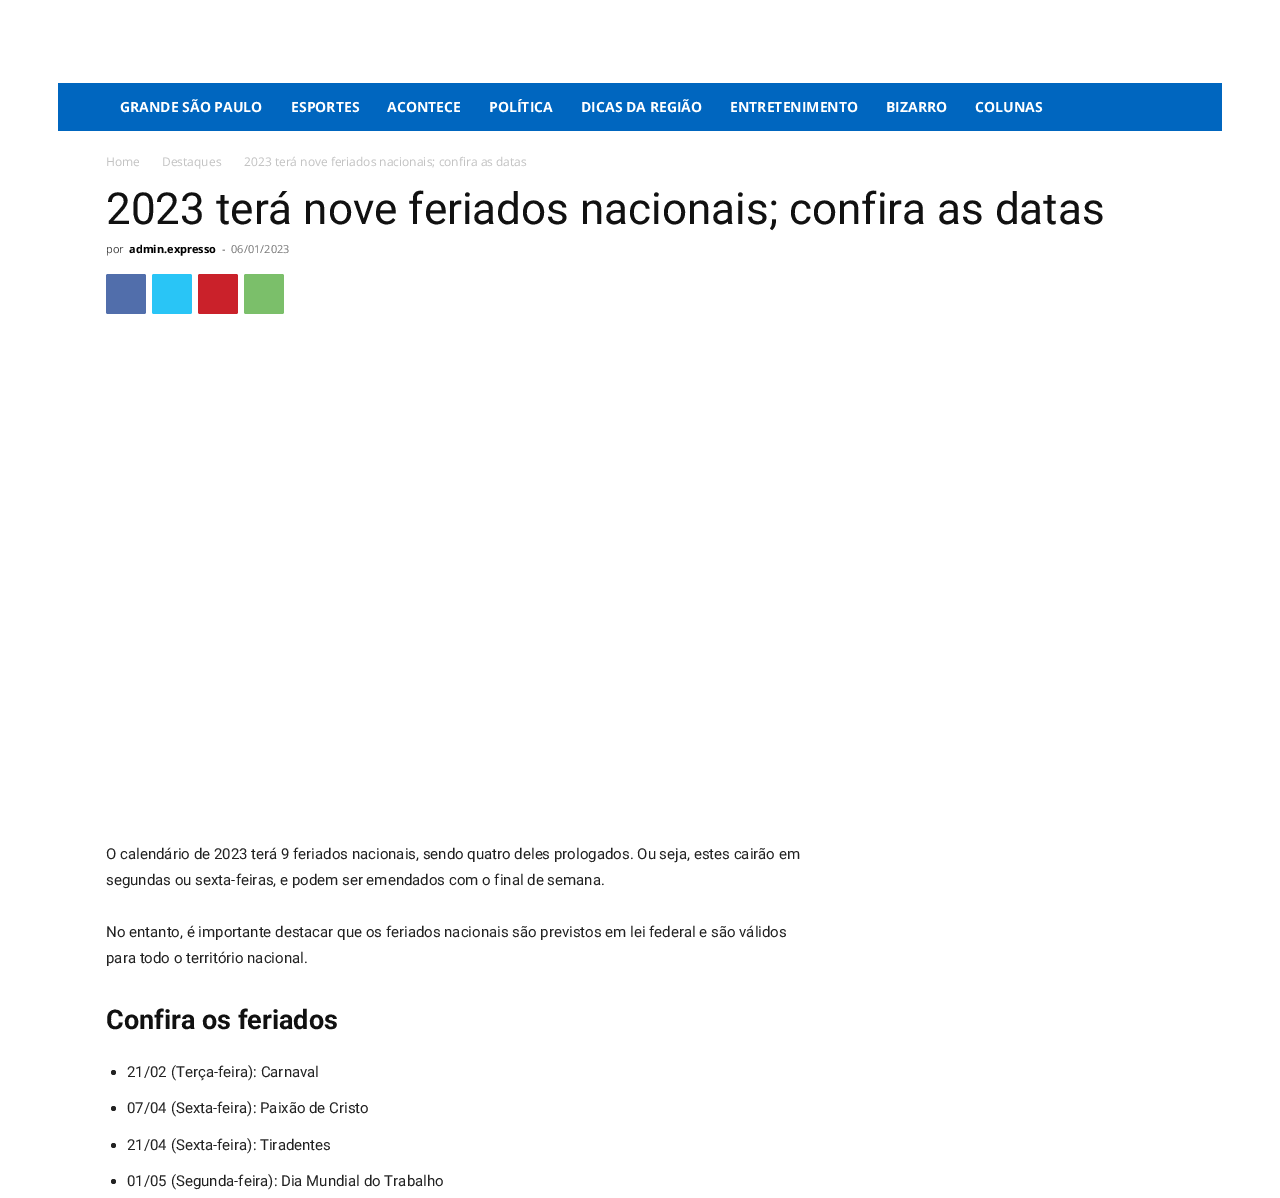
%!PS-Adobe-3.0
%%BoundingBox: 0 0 1280 1198
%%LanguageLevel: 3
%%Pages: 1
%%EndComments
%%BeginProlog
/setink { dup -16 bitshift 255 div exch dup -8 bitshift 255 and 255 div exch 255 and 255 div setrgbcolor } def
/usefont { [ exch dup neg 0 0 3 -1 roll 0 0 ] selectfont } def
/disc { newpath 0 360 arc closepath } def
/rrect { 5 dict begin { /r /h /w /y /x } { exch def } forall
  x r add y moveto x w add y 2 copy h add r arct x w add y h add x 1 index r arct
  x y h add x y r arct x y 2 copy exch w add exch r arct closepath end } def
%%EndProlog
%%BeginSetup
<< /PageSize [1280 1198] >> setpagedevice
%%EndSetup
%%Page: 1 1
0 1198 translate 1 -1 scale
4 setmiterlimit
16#FFFFFF setink
0 0 1280 1198 rectfill
16#0066BF setink
58 83 1164 48 rectfill
/OpenSans-Bold 14 usefont
16#FFFFFF setink
[
    [(GRANDE SÃO PAULO) 120 112]
    [(ESPORTES) 291 112]
    [(ACONTECE) 387 112]
    [(POLÍTICA) 489 112]
    [(DICAS DA REGIÃO) 581 112]
    [(ENTRETENIMENTO) 730 112]
    [(BIZARRO) 886 112]
    [(COLUNAS) 975 112]
] { aload pop moveto show } forall
/OpenSans-Regular 12 usefont
16#C3C3C3 setink
[
    [(Home) 106 166]
    [(Destaques) 162 166]
    [(2023 terá nove feriados nacionais; confira as datas) 244 166]
] { aload pop moveto show } forall
/Roboto-Regular 44 usefont
16#111111 setink
106 224 moveto (2023 terá nove feriados nacionais; confira as datas) show
/OpenSans-Regular 11 usefont
16#444444 setink
106 253 moveto (por) show
/OpenSans-Bold 11 usefont
16#000000 setink
129 253 moveto (admin.expresso) show
/OpenSans-Regular 11 usefont
16#444444 setink
222 253 moveto (-) show
16#767676 setink
231 253 moveto (06/01/2023) show
16#516EAB setink
106 274 40 40 2 rrect fill
16#29C5F6 setink
152 274 40 40 2 rrect fill
16#CA212A setink
198 274 40 40 2 rrect fill
16#7BBF6A setink
244 274 40 40 2 rrect fill
/Roboto-Regular 15 usefont
16#222222 setink
[
    [(O calendário de 2023 terá 9 feriados nacionais, sendo quatro deles prologados. Ou seja, estes cairão em) 106 859]
    [(segundas ou sexta-feiras, e podem ser emendados com o final de semana.) 106 885]
    [(No entanto, é importante destacar que os feriados nacionais são previstos em lei federal e são válidos) 106 937]
    [(para todo o território nacional.) 106 963]
] { aload pop moveto show } forall
/Roboto-Bold 27 usefont
16#111111 setink
106 1029 moveto (Confira os feriados) show
16#222222 setink
113.5 1072.5 2.5 disc fill
/Roboto-Regular 15 usefont
127 1077 moveto (21/02 \(Terça-feira\): Carnaval) show
113.5 1108.5 2.5 disc fill
127 1113 moveto (07/04 \(Sexta-feira\): Paixão de Cristo) show
113.5 1145.5 2.5 disc fill
127 1150 moveto (21/04 \(Sexta-feira\): Tiradentes) show
113.5 1181.5 2.5 disc fill
127 1186 moveto (01/05 \(Segunda-feira\): Dia Mundial do Trabalho) show
showpage
%%EOF
